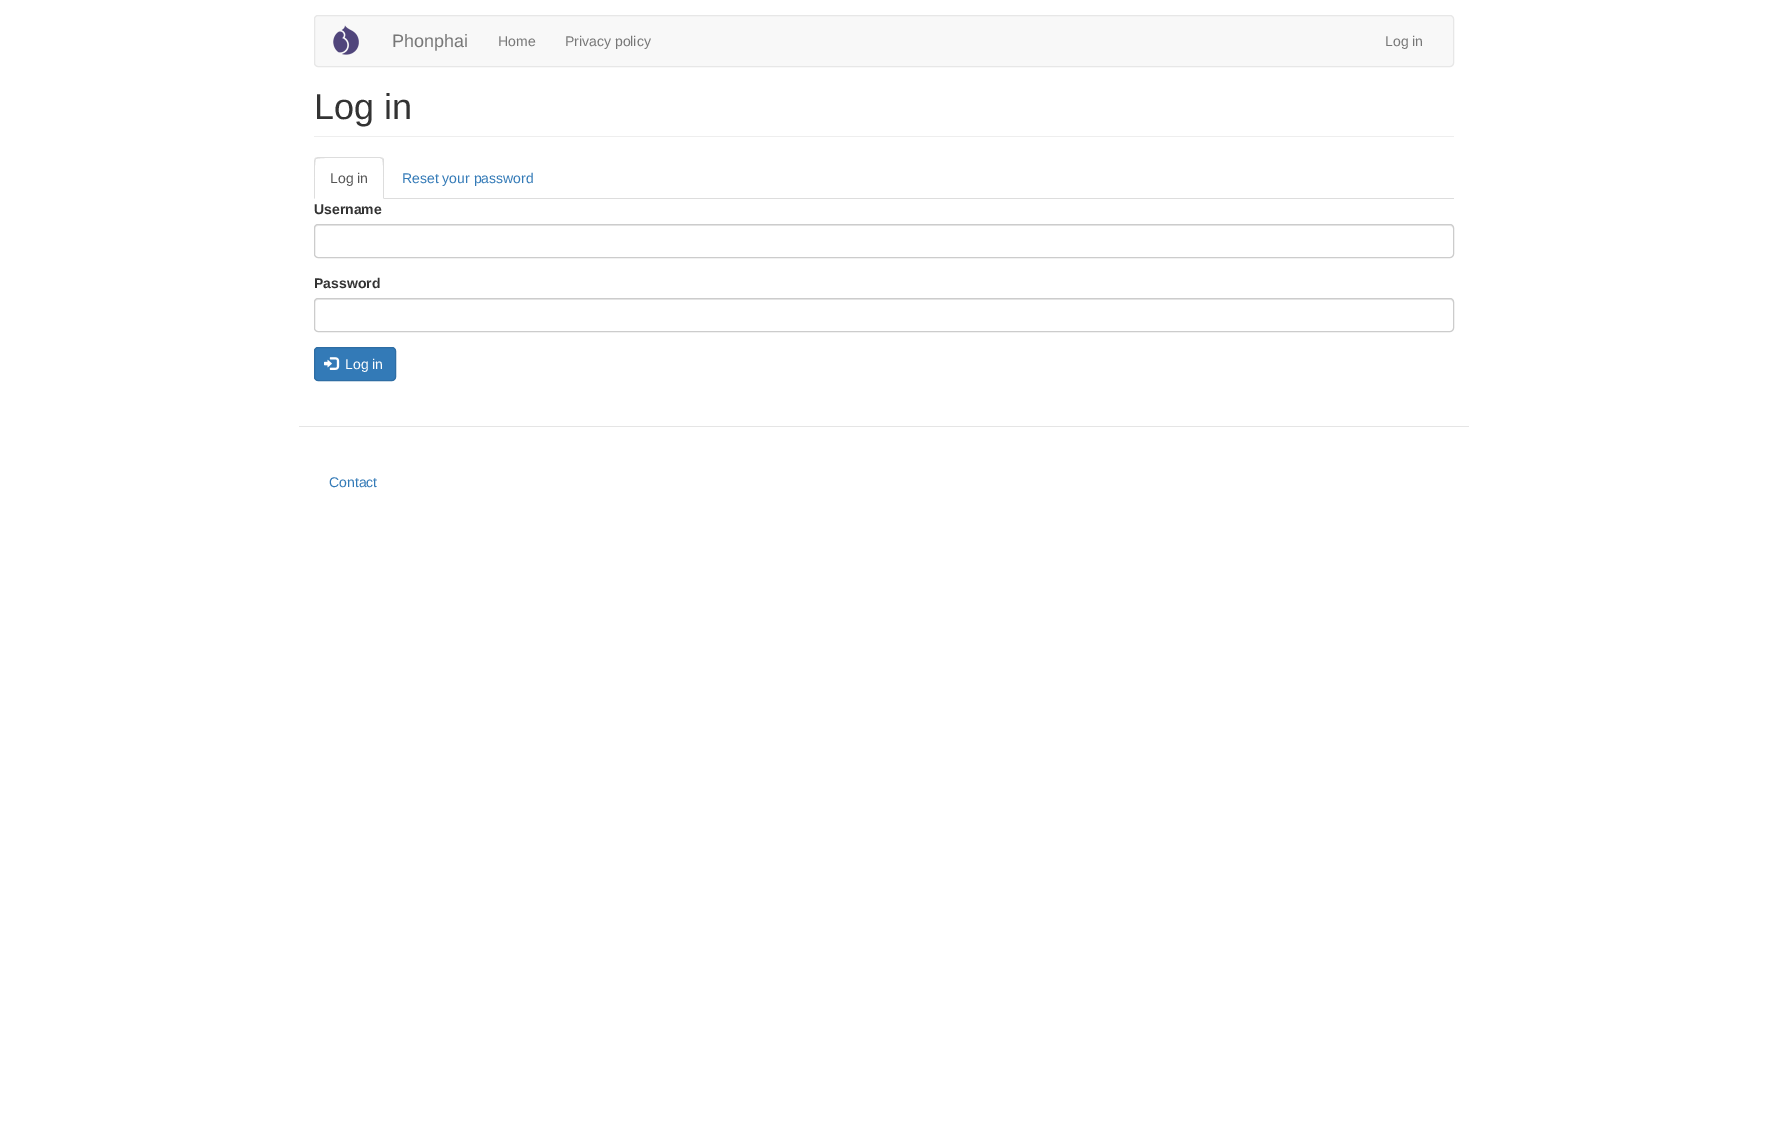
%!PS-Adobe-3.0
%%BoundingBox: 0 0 1768 1136
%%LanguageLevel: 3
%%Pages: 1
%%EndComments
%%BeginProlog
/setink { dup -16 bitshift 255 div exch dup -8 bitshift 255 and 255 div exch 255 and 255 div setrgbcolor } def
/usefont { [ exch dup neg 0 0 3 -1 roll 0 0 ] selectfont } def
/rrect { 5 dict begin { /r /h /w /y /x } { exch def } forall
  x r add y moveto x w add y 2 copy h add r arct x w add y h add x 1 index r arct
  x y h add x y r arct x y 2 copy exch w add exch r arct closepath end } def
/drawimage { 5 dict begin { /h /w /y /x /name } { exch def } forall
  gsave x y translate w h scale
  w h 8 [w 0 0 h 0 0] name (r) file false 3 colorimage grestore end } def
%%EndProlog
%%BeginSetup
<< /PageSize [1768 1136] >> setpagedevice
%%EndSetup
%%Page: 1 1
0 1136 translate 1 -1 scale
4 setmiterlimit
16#FFFFFF setink
0 0 1768 1136 rectfill
16#F8F8F8 setink
314.5 15.5 1139 51 3.5 rrect gsave fill grestore
16#E7E7E7 setink
stroke
(img1.raw) 333 25 26 30 drawimage
/LiberationSans-Regular 18 usefont
16#777777 setink
392 47 moveto (Phonphai) show
/LiberationSans-Regular 14 usefont
[
    [(Home) 498 46]
    [(Privacy policy) 565 46]
    [(Log in) 1385 46]
] { aload pop moveto show } forall
16#EEEEEE setink
314 136 1140 1 rectfill
/LiberationSans-Regular 36 usefont
16#333333 setink
314 119 moveto (Log in) show
16#DDDDDD setink
384 198 1070 1 rectfill
318 157 moveto 315 158 lineto 316 159 lineto 318 157 364 158 370 158 curveto 380 158 lineto 382 159 lineto 383 158 lineto 380 157 lineto closepath fill
384 199 moveto 384 161 lineto 384 160 384 159 383 158 curveto 382 159 lineto 384 161 383 193 383 198 curveto closepath fill
314 199 moveto 315 198 lineto 315 193 314 161 316 159 curveto 315 158 lineto 314 161 lineto closepath fill
/LiberationSans-Regular 14 usefont
16#555555 setink
330 183 moveto (Log in) show
16#337AB7 setink
402 183 moveto (Reset your password) show
/LiberationSans-Bold 14 usefont
16#333333 setink
314 214 moveto (Username) show
16#ECECEC setink
318 226 moveto 1450 226 lineto 1452 226 1453 227 1453 229 curveto 1453 228 lineto 1453 226 1452 225 1450 225 curveto 318 225 lineto 316 225 315 226 315 228 curveto 315 229 lineto 315 227 316 226 318 226 curveto closepath fill
16#CCCCCC setink
314.5 224.5 1139 33 3.5 rrect stroke
16#333333 setink
314 288 moveto (Password) show
16#ECECEC setink
318 300 moveto 1450 300 lineto 1452 300 1453 301 1453 303 curveto 1453 302 lineto 1453 300 1452 299 1450 299 curveto 318 299 lineto 316 299 315 300 315 302 curveto 315 303 lineto 315 301 316 300 318 300 curveto closepath fill
16#CCCCCC setink
314.5 298.5 1139 33 3.5 rrect stroke
16#337AB7 setink
314.5 347.5 81 33 3.5 rrect gsave fill grestore
16#2E6DA4 setink
stroke
(img2.raw) 324 357 16 13 drawimage
/LiberationSans-Regular 14 usefont
16#FFFFFF setink
345 369 moveto (Log in) show
16#E5E5E5 setink
299 426 1170 1 rectfill
16#337AB7 setink
329 487 moveto (Contact) show
showpage
%%EOF
